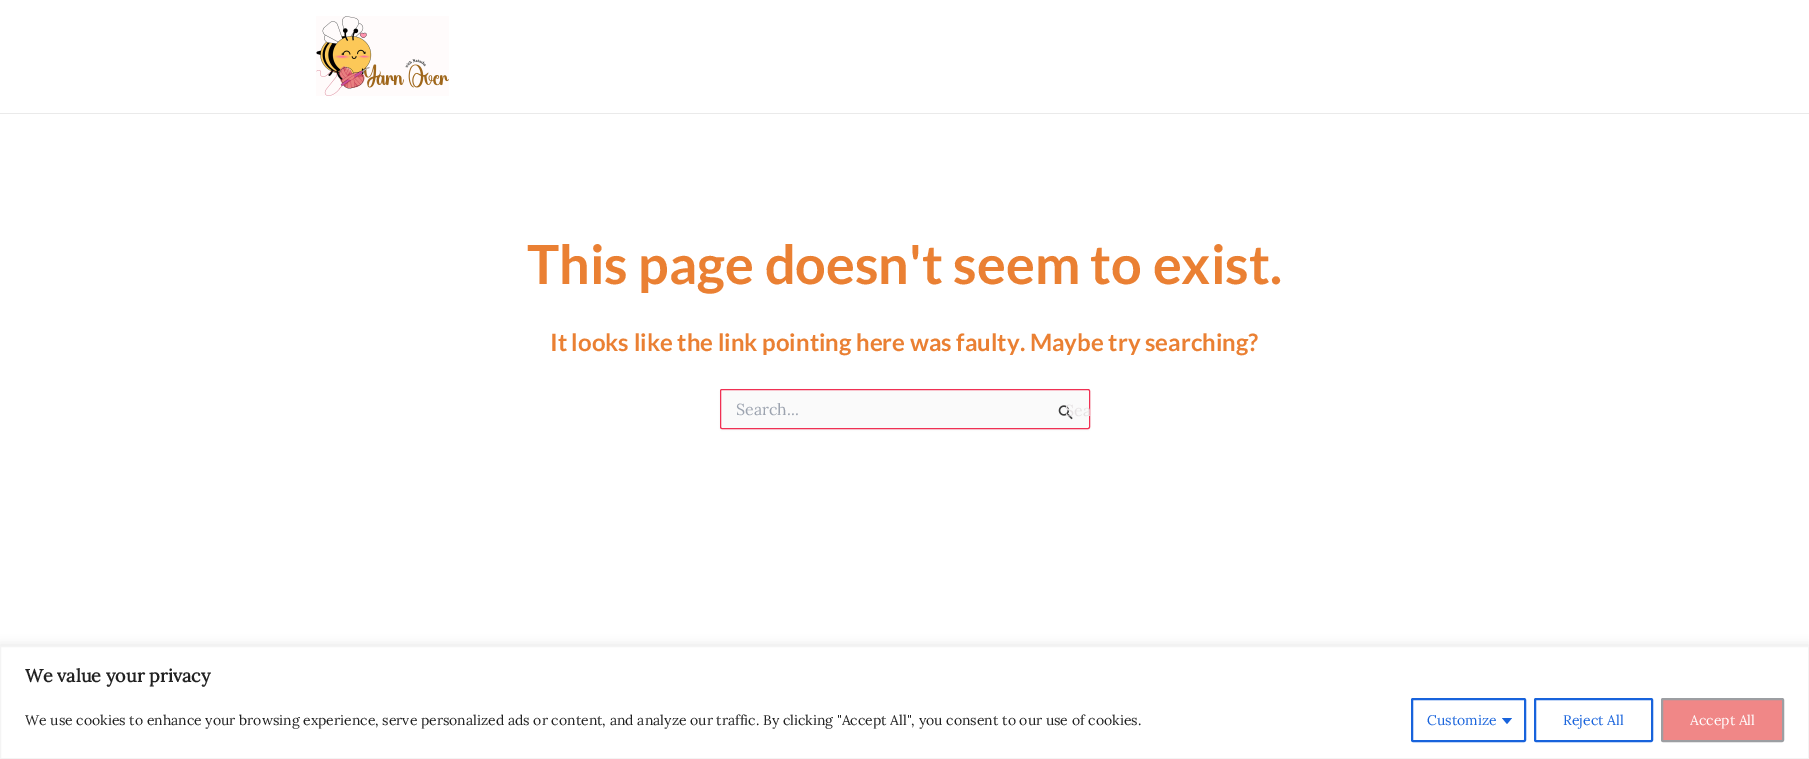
%!PS-Adobe-3.0
%%BoundingBox: 0 0 1809 759
%%LanguageLevel: 3
%%Pages: 1
%%EndComments
%%BeginProlog
/setink { dup -16 bitshift 255 div exch dup -8 bitshift 255 and 255 div exch 255 and 255 div setrgbcolor } def
/usefont { [ exch dup neg 0 0 3 -1 roll 0 0 ] selectfont } def
/setalpha { dup .setfillconstantalpha .setstrokeconstantalpha } def
/rrect { 5 dict begin { /r /h /w /y /x } { exch def } forall
  x r add y moveto x w add y 2 copy h add r arct x w add y h add x 1 index r arct
  x y h add x y r arct x y 2 copy exch w add exch r arct closepath end } def
/softshadow { 12 dict begin { /a /b /q /h /w /y /x } { exch def } forall gsave /was 0 def
  9 -2 -9 { dup b mul 4 div /e exch def 1 sub .425 mul 2.718 exch exp 1 add a .99 .min exch div /now exch def
    1 1 now sub 1 was sub div sub setalpha /was now def
    w h .min e 2 mul add 0 gt { x e sub y e sub w e 2 mul add h e 2 mul add
      q e add b .6 mul add w h .min 2 div e add .min 0 .max rrect fill } if } for grestore end } def
/drawimage { 5 dict begin { /h /w /y /x /name } { exch def } forall
  gsave x y translate w h scale
  w h 8 [w 0 0 h 0 0] name (r) file false 3 colorimage grestore end } def
%%EndProlog
%%BeginSetup
<< /PageSize [1809 759] /PageUsesTransparency true >> setpagedevice
%%EndSetup
%%Page: 1 1
0 .pushpdf14devicefilter
0 759 translate 1 -1 scale
4 setmiterlimit
16#FFFFFF setink
0 0 1809 759 rectfill
16#EAEAEA setink
0 113 1809 1 rectfill
(img1.raw) 316 16 133 80 drawimage
/Lato-Bold 54 usefont
16#EA8033 setink
527 284 moveto (This page doesn't seem to exist.) show
/Lato-Bold 24 usefont
550 351 moveto (It looks like the link pointing here was faulty. Maybe try searching?) show
16#000000 setink
720 390 370 40 2 1 0.05 softshadow
16#FAFAFA setink
720.5 389.5 369 39 1.5 rrect gsave fill grestore
16#F03053 setink
stroke
/Lora-Regular 16 usefont
16#9CA3AF setink
736 415 moveto (Search...) show
(img2.raw) 1058 405 15 15 drawimage
16#E6E2E3 setink
1065 416 moveto (Sea) show
16#ACABAB setink
0 645 1809 113 0 5 0.3 softshadow
16#FFFFFF setink
0.5 646.5 moveto 1808.5 646.5 lineto 1808.5 758.5 lineto 0.5 758.5 lineto closepath gsave fill grestore
16#F4F4F4 setink
stroke
/Lora-Bold 18 usefont
16#212121 setink
25 682 moveto (We value your privacy) show
/Lora-Regular 14 usefont
25 725 moveto (We use cookies to enhance your browsing experience, serve personalized ads or content, and analyze our traffic. By clicking "Accept All", you consent to our use of cookies.) show
16#1863DC setink
2 setlinewidth
1412 699 113 42 1 rrect stroke
1427 725 moveto (Customize) show
1502 718 moveto 1512 718 lineto 1507 724 lineto closepath fill
1535 699 117 42 1 rrect stroke
1563 725 moveto (Reject All) show
16#F08787 setink
1662 699 121 42 1 rrect gsave fill grestore
16#9C9EA2 setink
stroke
16#FFFFFF setink
1690 725 moveto (Accept All) show
.poppdf14devicefilter showpage
%%EOF
